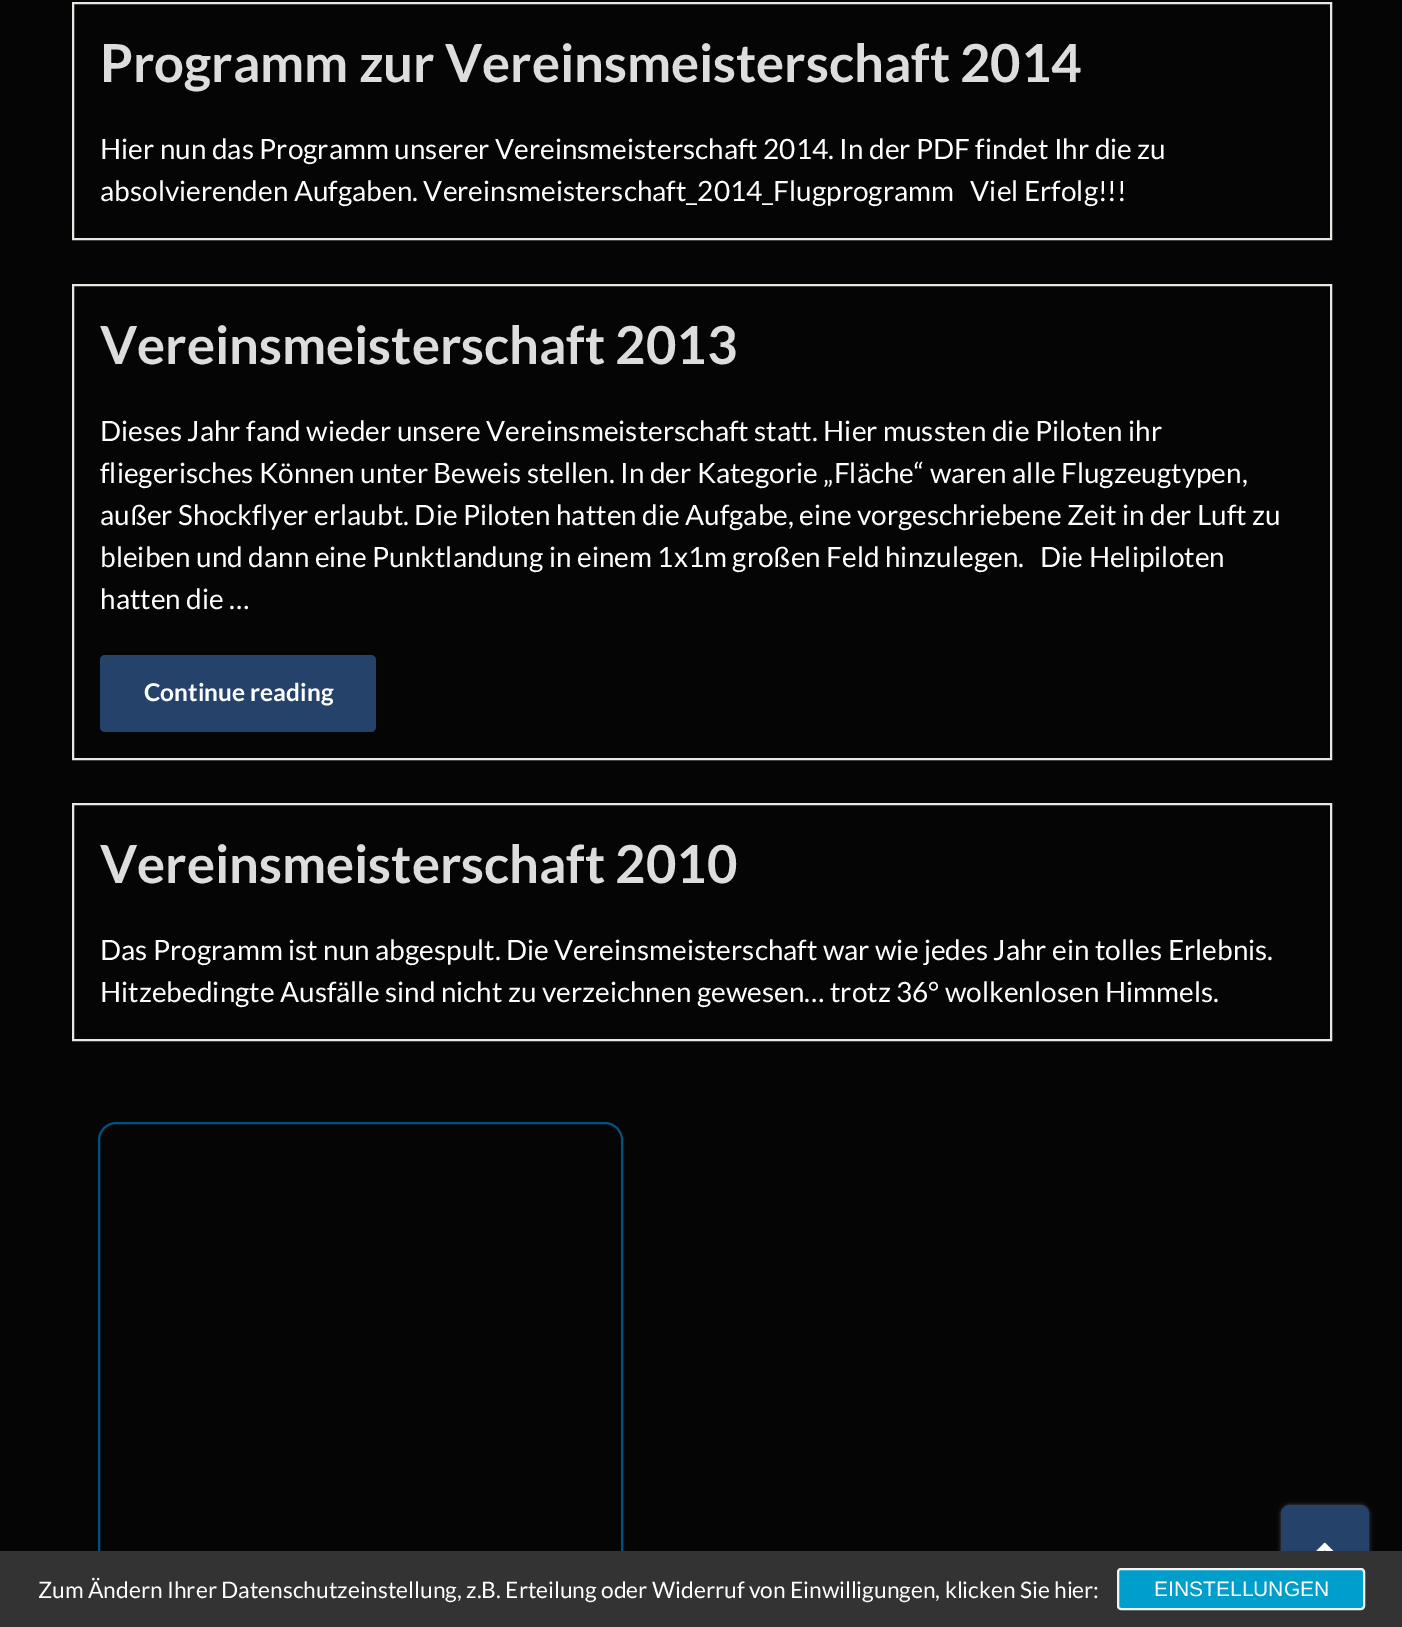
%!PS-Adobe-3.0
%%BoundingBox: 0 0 1402 1627
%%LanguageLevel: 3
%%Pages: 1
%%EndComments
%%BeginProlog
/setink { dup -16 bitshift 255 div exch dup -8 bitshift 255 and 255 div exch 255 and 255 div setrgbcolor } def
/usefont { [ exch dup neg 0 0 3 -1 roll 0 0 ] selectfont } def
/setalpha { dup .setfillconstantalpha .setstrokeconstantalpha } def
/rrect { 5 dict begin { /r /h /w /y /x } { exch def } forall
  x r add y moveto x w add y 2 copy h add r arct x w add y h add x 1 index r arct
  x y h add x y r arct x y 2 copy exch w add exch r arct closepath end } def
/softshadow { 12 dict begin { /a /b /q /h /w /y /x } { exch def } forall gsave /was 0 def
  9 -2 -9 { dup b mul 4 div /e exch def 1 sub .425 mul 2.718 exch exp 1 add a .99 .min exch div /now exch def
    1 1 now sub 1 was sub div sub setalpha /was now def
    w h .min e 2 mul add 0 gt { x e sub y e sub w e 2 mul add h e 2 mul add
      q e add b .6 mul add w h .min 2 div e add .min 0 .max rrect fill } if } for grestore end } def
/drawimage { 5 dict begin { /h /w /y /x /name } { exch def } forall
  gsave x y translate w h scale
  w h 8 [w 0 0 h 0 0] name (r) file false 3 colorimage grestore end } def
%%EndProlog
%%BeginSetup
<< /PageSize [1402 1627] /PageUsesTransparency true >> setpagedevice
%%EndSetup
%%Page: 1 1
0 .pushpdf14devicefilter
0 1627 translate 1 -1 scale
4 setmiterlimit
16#050505 setink
0 0 1402 1627 rectfill
16#E9E8E3 setink
2 setlinewidth
73 3 1258 236 rectstroke
/Lato-Bold 52.5 usefont
16#DDDDDD setink
100 82 moveto (Programm zur Vereinsmeisterschaft 2014) show
/Lato-Regular 28 usefont
16#FFFFFF setink
100 159 moveto (Hier nun das Programm unserer Vereinsmeisterschaft 2014. In der PDF findet Ihr die zu) show
100 201 moveto (absolvierenden Aufgaben. Vereinsmeisterschaft_2014_Flugprogramm   Viel Erfolg!!!) show
16#E9E8E3 setink
73 285 1258 474 rectstroke
/Lato-Bold 52.5 usefont
16#DDDDDD setink
100 364 moveto (Vereinsmeisterschaft 2013) show
/Lato-Regular 28 usefont
16#FFFFFF setink
[
    [(Dieses Jahr fand wieder unsere Vereinsmeisterschaft statt. Hier mussten die Piloten ihr) 100 441]
    [(fliegerisches Können unter Beweis stellen. In der Kategorie „Fläche“ waren alle Flugzeugtypen,) 100 483]
    [(außer Shockflyer erlaubt. Die Piloten hatten die Aufgabe, eine vorgeschriebene Zeit in der Luft zu) 100 525]
    [(bleiben und dann eine Punktlandung in einem 1x1m großen Feld hinzulegen.   Die Helipiloten) 100 567]
    [(hatten die …) 100 609]
] { aload pop moveto show } forall
16#25426B setink
100 655 276 77 5 rrect fill
/Lato-Bold 24.5 usefont
16#FFFFFF setink
144 701 moveto (Continue reading) show
16#E9E8E3 setink
73 804 1258 236 rectstroke
/Lato-Bold 52.5 usefont
16#DDDDDD setink
100 883 moveto (Vereinsmeisterschaft 2010) show
/Lato-Regular 28 usefont
16#FFFFFF setink
100 960 moveto (Das Programm ist nun abgespult. Die Vereinsmeisterschaft war wie jedes Jahr ein tolles Erlebnis.) show
100 1002 moveto (Hitzebedingte Ausfälle sind nicht zu verzeichnen gewesen… trotz 36° wolkenlosen Himmels.) show
16#00537F setink
99 1123 523 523 17 rrect stroke
16#FFFFFF setink
1281 1505 88 88 9 2 0.3 softshadow
16#25426B setink
1281 1505 88 88 9 rrect fill
(img1.raw) 1316 1542 18 9 drawimage
16#333333 setink
0 1551 1402 76 rectfill
/Lato-Regular 22.75 usefont
16#FFFFFF setink
38 1598 moveto (Zum Ändern Ihrer Datenschutzeinstellung, z.B. Erteilung oder Widerruf von Einwilligungen, klicken Sie hier:) show
16#009ECB setink
1118 1569 246 40 3 rrect gsave fill grestore
16#F3F3F3 setink
stroke
/LiberationSans-Regular 21 usefont
16#FFFFFF setink
1154 1596 moveto (EINSTELLUNGEN) show
.poppdf14devicefilter showpage
%%EOF
